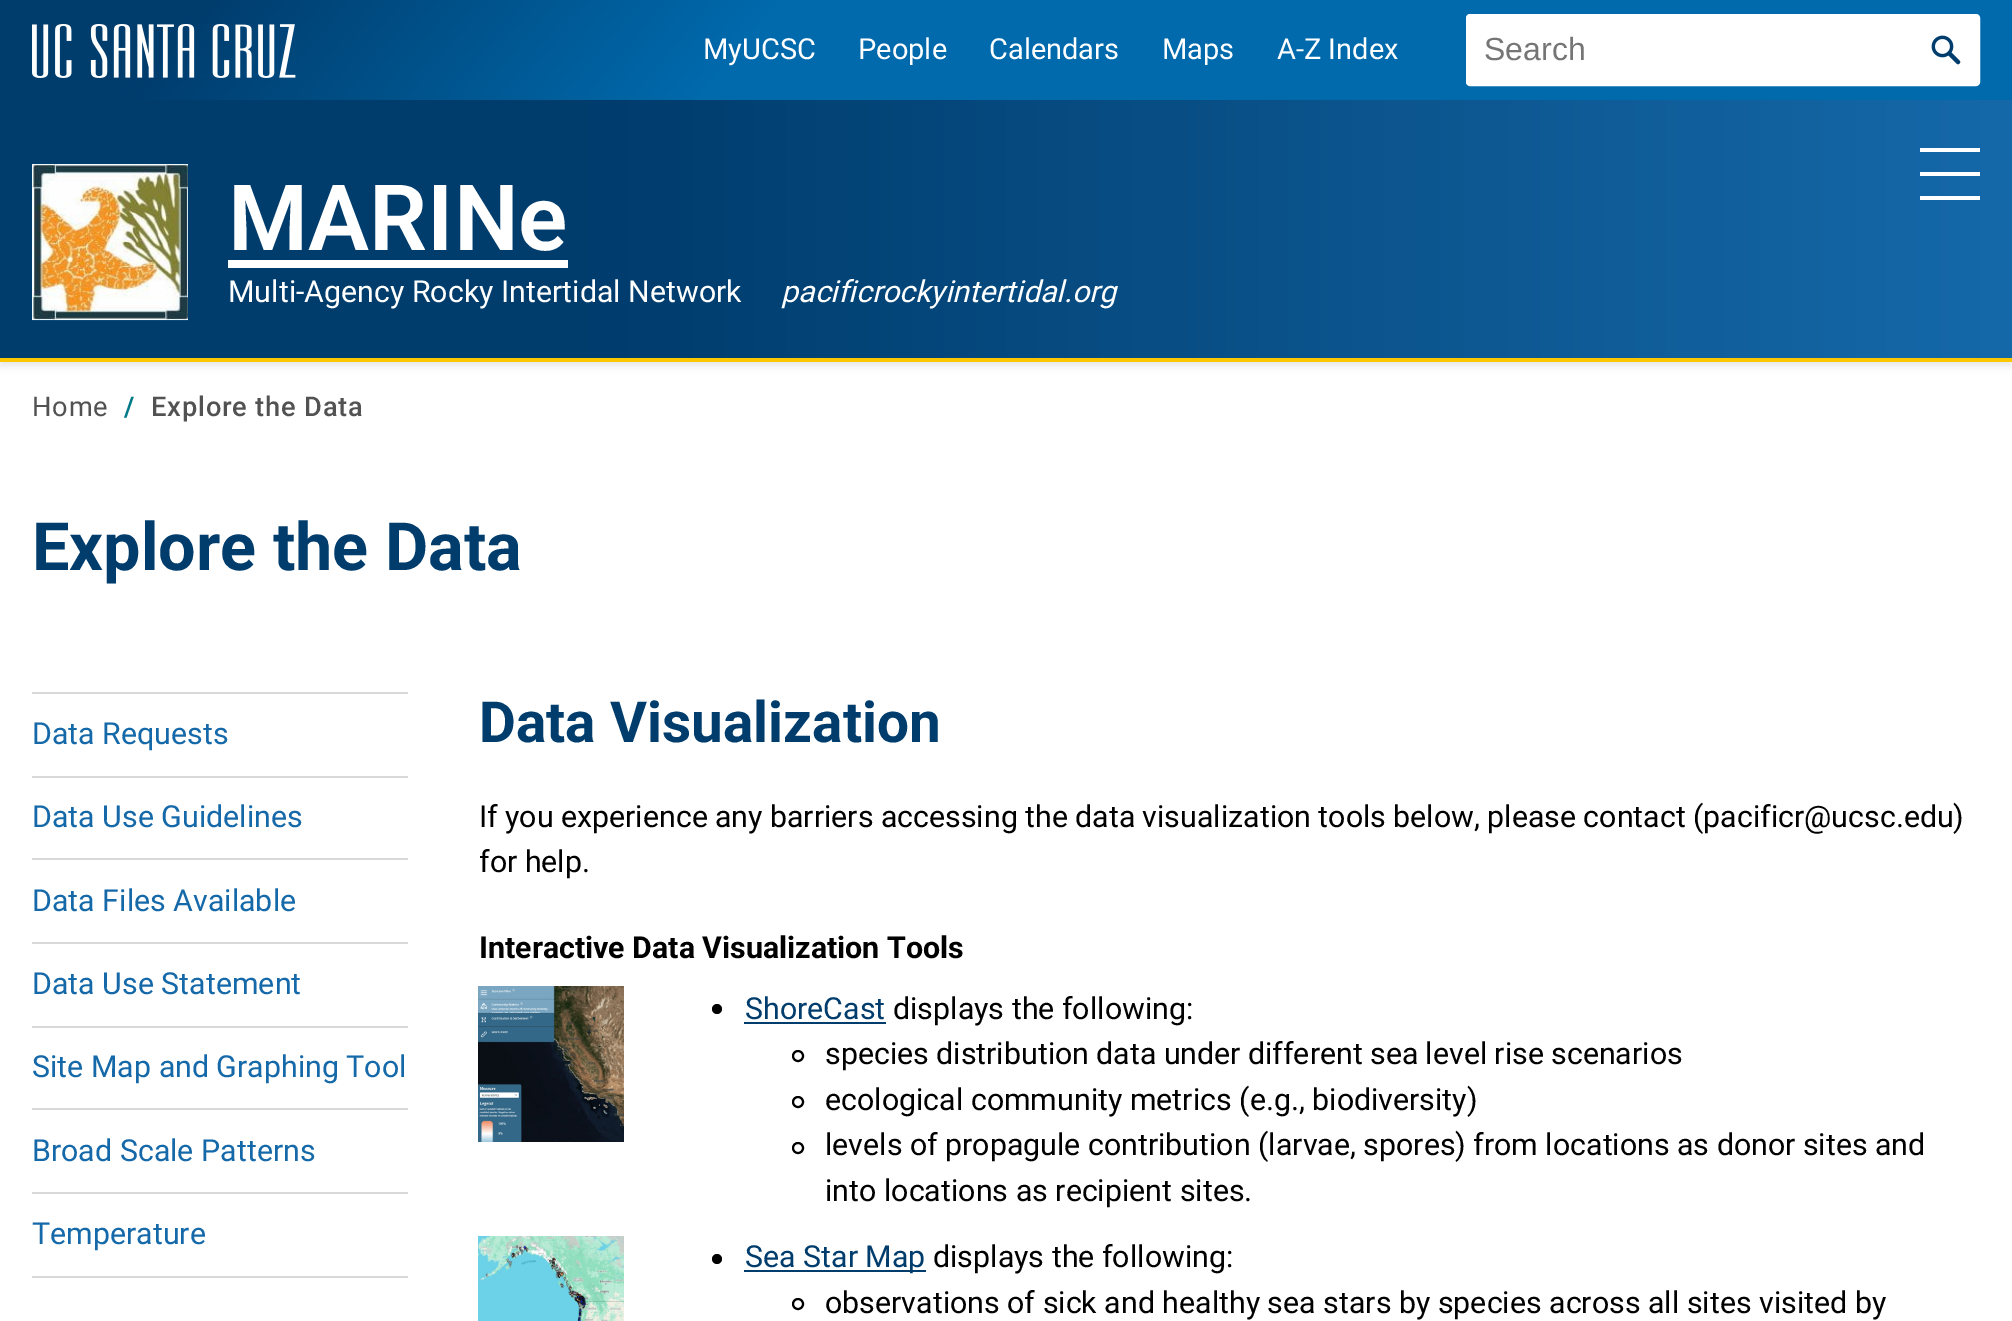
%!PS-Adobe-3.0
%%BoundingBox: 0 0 2012 1321
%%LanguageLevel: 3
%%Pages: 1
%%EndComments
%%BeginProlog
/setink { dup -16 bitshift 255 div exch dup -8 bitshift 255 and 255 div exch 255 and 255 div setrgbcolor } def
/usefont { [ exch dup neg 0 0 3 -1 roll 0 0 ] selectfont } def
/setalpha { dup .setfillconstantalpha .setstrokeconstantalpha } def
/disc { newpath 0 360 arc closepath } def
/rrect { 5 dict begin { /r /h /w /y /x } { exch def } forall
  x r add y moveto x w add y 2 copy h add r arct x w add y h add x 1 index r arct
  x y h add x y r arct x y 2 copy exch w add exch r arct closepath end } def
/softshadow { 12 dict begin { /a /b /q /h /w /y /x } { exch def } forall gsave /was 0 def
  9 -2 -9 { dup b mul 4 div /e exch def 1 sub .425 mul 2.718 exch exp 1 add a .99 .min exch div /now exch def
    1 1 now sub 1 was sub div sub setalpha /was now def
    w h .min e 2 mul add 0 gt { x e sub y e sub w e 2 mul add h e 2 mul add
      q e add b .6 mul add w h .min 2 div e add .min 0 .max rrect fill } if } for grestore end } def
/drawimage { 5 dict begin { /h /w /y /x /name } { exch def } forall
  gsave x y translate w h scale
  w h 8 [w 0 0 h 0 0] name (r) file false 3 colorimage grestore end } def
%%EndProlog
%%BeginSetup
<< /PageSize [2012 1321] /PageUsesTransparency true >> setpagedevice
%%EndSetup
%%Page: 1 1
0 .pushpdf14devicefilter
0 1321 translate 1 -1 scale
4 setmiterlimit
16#FFFFFF setink
0 0 2012 1321 rectfill
16#003C6C setink
0 0 32 100 rectfill
16#006AAD setink
1980 0 32 100 rectfill
gsave 32 0 moveto 1980 0 lineto 1980 100 lineto 32 100 lineto closepath clip newpath
<< /ShadingType 2 /ColorSpace /DeviceRGB /Coords [410 -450 1602 550] /Extend [true true] /Function << /FunctionType 3 /Domain [0 1] /Functions [<< /FunctionType 2 /Domain [0 1] /C0 [0 0.235 0.424] /C1 [0 0.235 0.424] /N 1 >> << /FunctionType 2 /Domain [0 1] /C0 [0 0.235 0.424] /C1 [0 0.416 0.678] /N 1 >> << /FunctionType 2 /Domain [0 1] /C0 [0 0.416 0.678] /C1 [0 0.416 0.678] /N 1 >>] /Bounds [0.08 0.37] /Encode [0 1 0 1 0 1] >> >> shfill grestore
(img1.raw) 32 24 264 54 drawimage
/Roboto-Regular 29 usefont
16#FFFFFF setink
[
    [(MyUCSC) 703 59]
    [(People) 858 59]
    [(Calendars) 989 59]
    [(Maps) 1162 59]
    [(A-Z Index) 1277 59]
] { aload pop moveto show } forall
1467 15 512 70 3 rrect gsave fill grestore
2 setlinewidth
stroke
/LiberationSans-Regular 32 usefont
16#757575 setink
1484 60 moveto (Search) show
(img2.raw) 1931 35 30 30 drawimage
16#000000 setink
0 104 2012 262 0 4 0.1 softshadow
gsave 0 100 moveto 2012 100 lineto 2012 358 lineto 0 358 lineto closepath clip newpath
<< /ShadingType 2 /ColorSpace /DeviceRGB /Coords [0 229 2012 229] /Extend [true true] /Function << /FunctionType 3 /Domain [0 1] /Functions [<< /FunctionType 2 /Domain [0 1] /C0 [0 0.235 0.424] /C1 [0 0.235 0.424] /N 1 >> << /FunctionType 2 /Domain [0 1] /C0 [0 0.235 0.424] /C1 [0.082 0.412 0.663] /N 1 >>] /Bounds [0.29] /Encode [0 1 0 1] >> >> shfill grestore
[
    [1920 148 60 4 16#FFFFFF]
    [1920 172 60 4 16#FFFFFF]
    [1920 196 60 4 16#FFFFFF]
] { aload pop setink rectfill } forall
(img3.raw) 32 164 156 157 drawimage
/Roboto-SemiBold 91.5 usefont
228 250 moveto (MARINe) show
228 260 340 8 rectfill
/Roboto-Regular 30.35 usefont
228 302 moveto (Multi-Agency Rocky Intertidal Network) show
/Roboto-Italic 30.35 usefont
781 302 moveto (pacificrockyintertidal.org) show
16#FDC700 setink
0 358 2012 4 rectfill
/Roboto-Regular 27.25 usefont
16#525252 setink
32 416 moveto 0.8 0 (Home) ashow
/Roboto-SemiBold 27.25 usefont
16#007988 setink
124 416 moveto 0.8 0 (/) ashow
/Roboto-Medium 27.25 usefont
16#525252 setink
151 416 moveto 0.8 0 (Explore the Data) ashow
/Roboto-Bold 66.5 usefont
16#003C6C setink
32 570 moveto (Explore the Data) show
16#D9D9D9 setink
32 692 376 2 rectfill
/Roboto-Regular 30.35 usefont
16#1569A9 setink
32 744 moveto (Data Requests) show
16#D9D9D9 setink
32 776 376 2 rectfill
16#1569A9 setink
32 827 moveto (Data Use Guidelines) show
16#D9D9D9 setink
32 858 376 2 rectfill
16#1569A9 setink
32 911 moveto (Data Files Available) show
16#D9D9D9 setink
32 942 376 2 rectfill
16#1569A9 setink
32 994 moveto (Data Use Statement) show
16#D9D9D9 setink
32 1026 376 2 rectfill
16#1569A9 setink
32 1077 moveto (Site Map and Graphing Tool) show
16#D9D9D9 setink
32 1108 376 2 rectfill
16#1569A9 setink
32 1161 moveto (Broad Scale Patterns) show
16#D9D9D9 setink
32 1192 376 2 rectfill
16#1569A9 setink
32 1244 moveto (Temperature) show
16#D9D9D9 setink
32 1276 376 2 rectfill
/Roboto-Bold 56.75 usefont
16#003C6C setink
479 742 moveto (Data Visualization) show
/Roboto-Regular 30.35 usefont
16#000000 setink
479 827 moveto -0.2 0 32 (If you experience any barriers accessing the data visualization tools below, please contact \(pacificr@ucsc.edu\)) widthshow
479 872 moveto (for help.) show
/Roboto-Bold 30.35 usefont
479 958 moveto (Interactive Data Visualization Tools) show
(img4.raw) 478 986 146 156 drawimage
717 1009 5 disc fill
/Roboto-Regular 30.35 usefont
16#003C6C setink
745 1019 moveto (ShoreCast) show
744 1022 142 2 rectfill
16#000000 setink
893 1019 moveto (displays the following:) show
798 1056 5 disc stroke
825 1064 moveto -0.25 0 32 (species distribution data under different sea level rise scenarios) widthshow
798 1102 5 disc stroke
825 1110 moveto (ecological community metrics \(e.g., biodiversity\)) show
798 1148 5 disc stroke
825 1155 moveto -0.1 0 32 (levels of propagule contribution \(larvae, spores\) from locations as donor sites and) widthshow
825 1201 moveto (into locations as recipient sites.) show
(img5.raw) 478 1236 146 85 drawimage
717 1259 5 disc fill
16#003C6C setink
744 1270 182 2 rectfill
745 1267 moveto (Sea Star Map) show
16#000000 setink
933 1267 moveto (displays the following:) show
798 1304 5 disc stroke
825 1313 moveto (observations of sick and healthy sea stars by species across all sites visited by) show
.poppdf14devicefilter showpage
%%EOF
